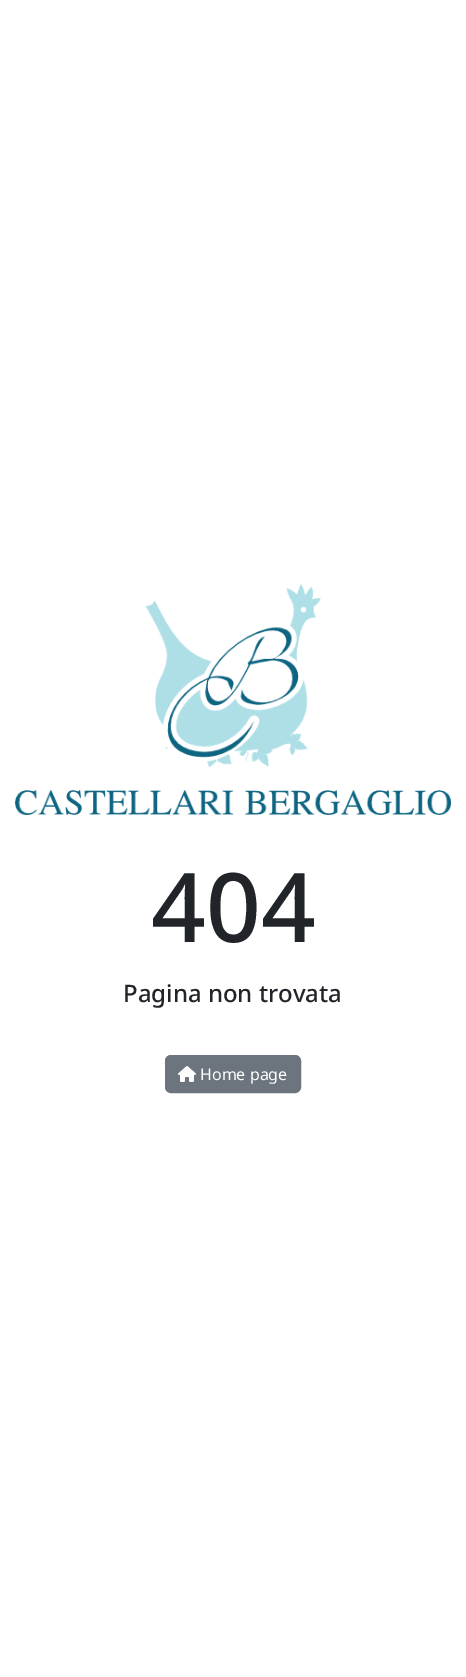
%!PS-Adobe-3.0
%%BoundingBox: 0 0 466 1677
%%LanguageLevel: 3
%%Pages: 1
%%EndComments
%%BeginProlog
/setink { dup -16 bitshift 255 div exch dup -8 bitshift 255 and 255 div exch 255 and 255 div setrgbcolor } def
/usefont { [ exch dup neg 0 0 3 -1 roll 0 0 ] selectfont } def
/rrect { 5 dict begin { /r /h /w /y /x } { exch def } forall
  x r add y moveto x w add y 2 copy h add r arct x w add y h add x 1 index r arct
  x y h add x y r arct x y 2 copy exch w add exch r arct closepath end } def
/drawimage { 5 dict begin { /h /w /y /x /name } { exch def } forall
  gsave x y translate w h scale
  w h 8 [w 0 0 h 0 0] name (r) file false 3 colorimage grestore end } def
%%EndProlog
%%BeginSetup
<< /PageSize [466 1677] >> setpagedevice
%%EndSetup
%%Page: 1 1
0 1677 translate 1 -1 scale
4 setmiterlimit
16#FFFFFF setink
0 0 466 1677 rectfill
(img1.raw) 15 584 436 231 drawimage
/NotoSans-Medium 96 usefont
16#212529 setink
151 942 moveto (404) show
/NotoSans-Medium 24 usefont
123 1002 moveto (Pagina non trovata) show
16#6C757D setink
165.5 1055.5 135 37 5.5 rrect gsave fill grestore
stroke
(img2.raw) 178 1066 18 16 drawimage
/NotoSans-Regular 16 usefont
16#FFFFFF setink
200 1080 moveto (Home page) show
showpage
%%EOF
